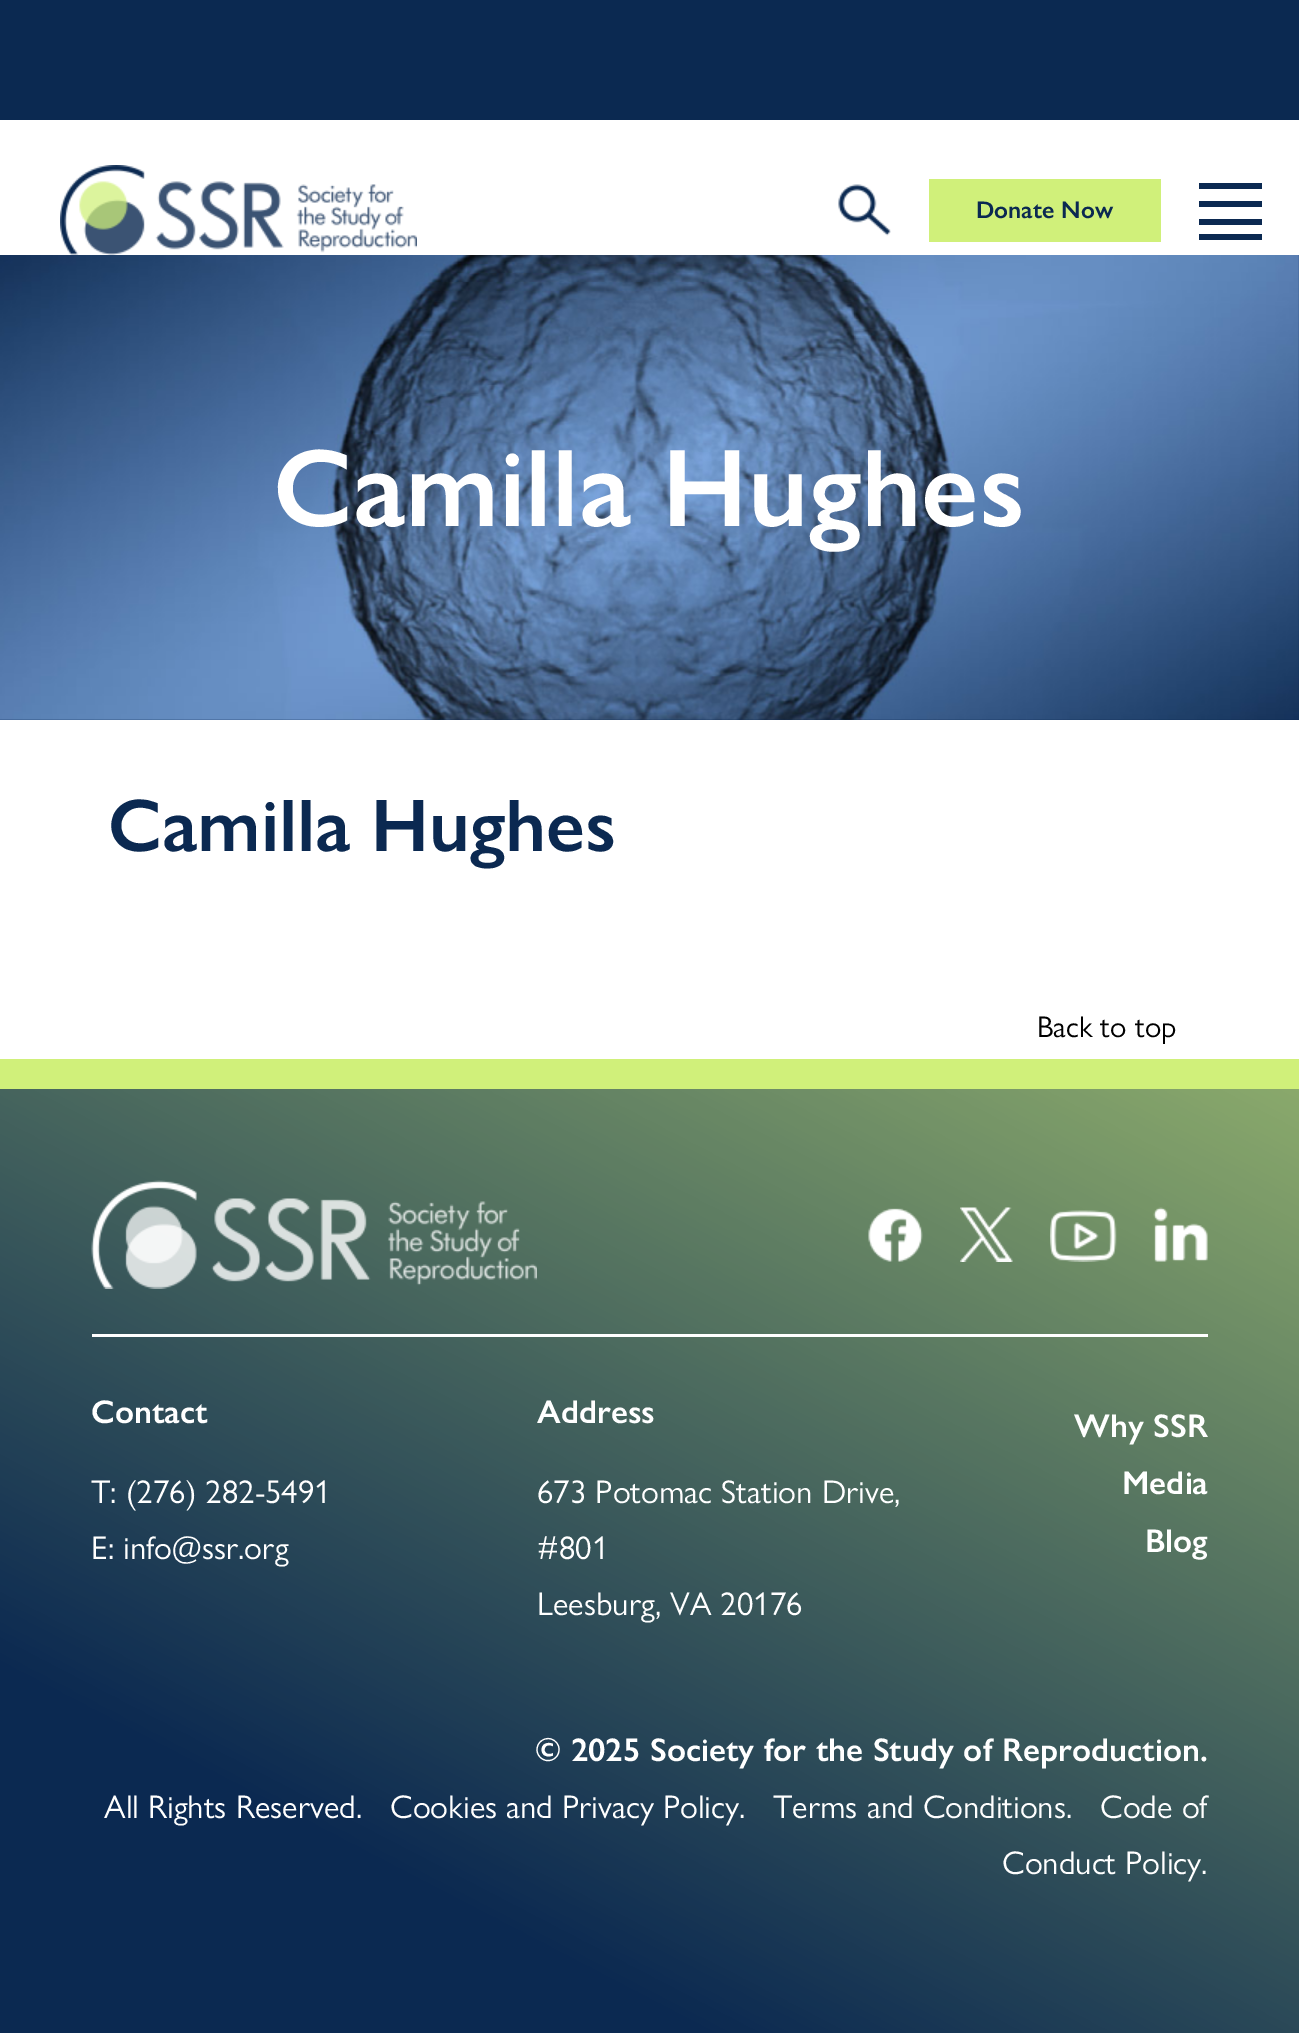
%!PS-Adobe-3.0
%%BoundingBox: 0 0 1299 2033
%%LanguageLevel: 3
%%Pages: 1
%%EndComments
%%BeginProlog
/setink { dup -16 bitshift 255 div exch dup -8 bitshift 255 and 255 div exch 255 and 255 div setrgbcolor } def
/usefont { [ exch dup neg 0 0 3 -1 roll 0 0 ] selectfont } def
/drawimage { 5 dict begin { /h /w /y /x /name } { exch def } forall
  gsave x y translate w h scale
  w h 8 [w 0 0 h 0 0] name (r) file false 3 colorimage grestore end } def
%%EndProlog
%%BeginSetup
<< /PageSize [1299 2033] >> setpagedevice
%%EndSetup
%%Page: 1 1
0 2033 translate 1 -1 scale
4 setmiterlimit
16#FFFFFF setink
0 0 1299 2033 rectfill
16#0B2951 setink
0 0 1299 120 rectfill
(img1.raw) 60 165 357 90 drawimage
(img2.raw) 838 184 53 52 drawimage
16#D0F07A setink
929 179 232 63 rectfill
/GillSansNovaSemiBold-SemiBold 24 usefont
16#0B2951 setink
976 218 moveto (Donate Now) show
[
    [1199 234 63 6 16#0B2951]
    [1199 201 63 6 16#0B2951]
    [1199 183 63 6 16#0B2951]
    [1199 219 63 6 16#0B2951]
    [0 255 1299 465 16#0B2951]
] { aload pop setink rectfill } forall
(img3.raw) 0 255 1299 465 drawimage
/GillSansNovaSemiBold-SemiBold 111 usefont
16#FFFFFF setink
273 526 moveto (Camilla Hughes) show
/GillSansNovaSemiBold-SemiBold 75 usefont
16#0B2951 setink
108 851 moveto (Camilla Hughes) show
/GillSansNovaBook-Regular 30 usefont
16#000000 setink
1037 1037 moveto (Back to top) show
(img4.raw) 0 1089 1299 944 drawimage
16#D0F07A setink
0 1059 1299 30 rectfill
16#FFFFFF setink
92 1334 1116 3 rectfill
(img5.raw) 91 1180 446 109 drawimage
(img6.raw) 868 1208 55 54 drawimage
(img7.raw) 960 1207 53 55 drawimage
(img8.raw) 1050 1210 67 52 drawimage
(img9.raw) 1153 1207 55 55 drawimage
/GillSansNovaSemiBold-SemiBold 32.9 usefont
91 1423 moveto (Contact) show
/GillSansNovaBook-Regular 32.9 usefont
91 1503 moveto (T: \(276\) 282-5491) show
91 1559 moveto (E: info@ssr.org) show
/GillSansNovaSemiBold-SemiBold 32.9 usefont
537 1423 moveto (Address) show
/GillSansNovaBook-Regular 32.9 usefont
[
    [(673 Potomac Station Drive,) 537 1503]
    [(#801) 537 1559]
    [(Leesburg, VA 20176) 537 1615]
] { aload pop moveto show } forall
/GillSansNovaSemiBold-SemiBold 32.9 usefont
[
    [(Why SSR) 1074 1437]
    [(Media) 1122 1494]
    [(Blog) 1145 1552]
    [(© 2025 Society for the Study of Reproduction.) 535 1761]
] { aload pop moveto show } forall
/GillSansNovaBook-Regular 32.9 usefont
[
    [(All Rights Reserved.) 104 1818]
    [(Cookies and Privacy Policy.) 390 1818]
    [(Terms and Conditions.) 773 1818]
    [(Code of) 1100 1818]
    [(Conduct Policy.) 1002 1874]
] { aload pop moveto show } forall
showpage
%%EOF
